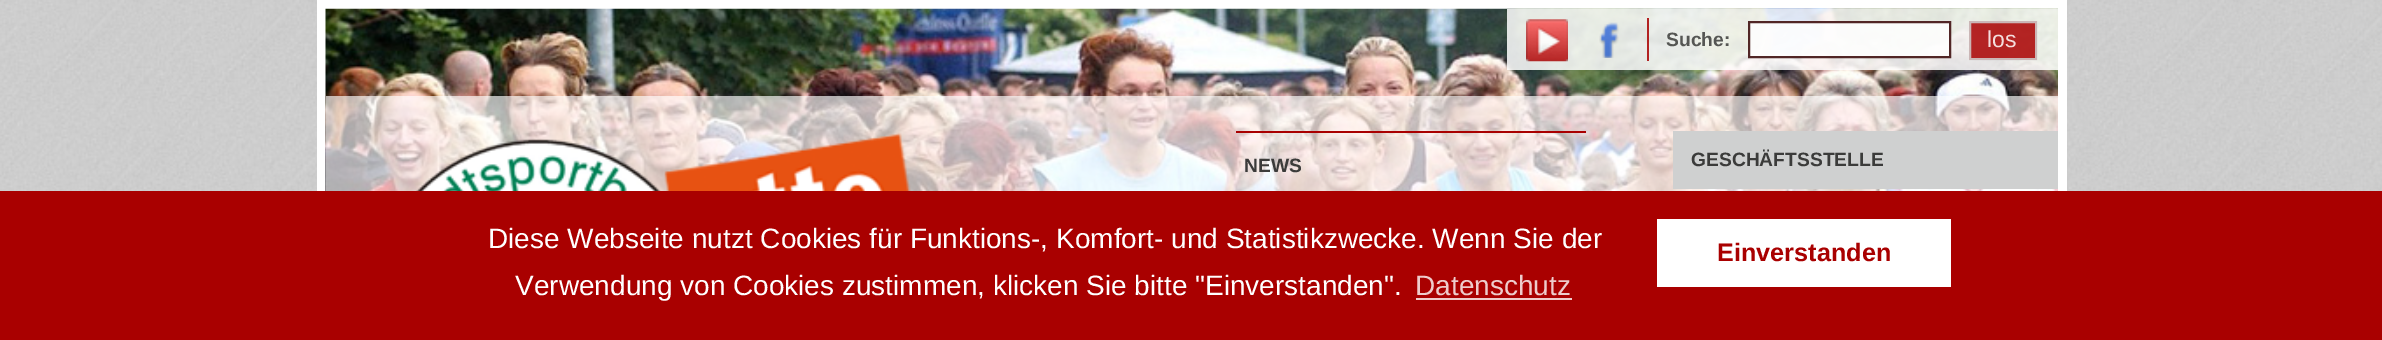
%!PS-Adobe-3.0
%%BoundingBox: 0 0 2382 340
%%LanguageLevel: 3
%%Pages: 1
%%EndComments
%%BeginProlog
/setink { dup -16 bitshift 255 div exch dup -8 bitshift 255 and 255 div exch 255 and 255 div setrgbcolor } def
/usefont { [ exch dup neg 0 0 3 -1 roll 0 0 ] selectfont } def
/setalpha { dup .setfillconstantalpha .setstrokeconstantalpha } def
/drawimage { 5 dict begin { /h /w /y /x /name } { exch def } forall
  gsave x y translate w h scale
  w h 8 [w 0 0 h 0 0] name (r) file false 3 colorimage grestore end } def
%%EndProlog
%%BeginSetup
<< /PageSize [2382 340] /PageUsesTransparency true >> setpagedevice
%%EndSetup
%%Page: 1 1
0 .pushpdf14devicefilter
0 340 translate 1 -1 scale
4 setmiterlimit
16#FFFFFF setink
0 0 2382 340 rectfill
(img1.raw) 0 0 2382 191 drawimage
317 0 1750 191 rectfill
(img2.raw) 325 8 1733 183 drawimage
0.85 setalpha
1507 9 551 61 rectfill
1 setalpha
(img3.raw) 1526 19 42 43 drawimage
(img4.raw) 1599 22 20 36 drawimage
0.85 setalpha
16#A90000 setink
1647 18 2 43 rectfill
/LiberationSans-Bold 19.25 usefont
1 setalpha
16#555654 setink
1666 46 moveto (Suche:) show
0.85 setalpha
16#FFFFFF setink
1748 21 203 37 rectfill
16#330000 setink
2 setlinewidth
1749 22 201 35 rectstroke
16#A90000 setink
1969 21 68 39 rectfill
16#CFD0D0 setink
1970 22 66 37 rectstroke
/LiberationSans-Regular 23 usefont
1 setalpha
16#F4DEDE setink
1987 47 moveto (los) show
0.66 setalpha
16#FFFFFF setink
326 96 1732 95 rectfill
1 setalpha
(img5.raw) 416 132 495 59 drawimage
16#A90000 setink
1236 131 350 2 rectfill
/LiberationSans-Bold 19.25 usefont
16#3B3B3A setink
1244 172 moveto (NEWS) show
16#CFD0D0 setink
1673 131 385 58 rectfill
16#3B3B3A setink
1691 166 moveto (GESCHÄFTSSTELLE) show
16#A90000 setink
0 191 2382 149 rectfill
/LiberationSans-Regular 28 usefont
16#FFFFFF setink
488 248 moveto (Diese Webseite nutzt Cookies für Funktions-, Komfort- und Statistikzwecke. Wenn Sie der) show
515 295 moveto (Verwendung von Cookies zustimmen, klicken Sie bitte "Einverstanden".) show
16#EECCCC setink
1415 295 moveto (Datenschutz) show
1416 298 156 2 rectfill
16#FFFFFF setink
1657 219 294 68 rectfill
/LiberationSans-Bold 25.25 usefont
16#A90000 setink
1717 261 moveto (Einverstanden) show
.poppdf14devicefilter showpage
%%EOF
